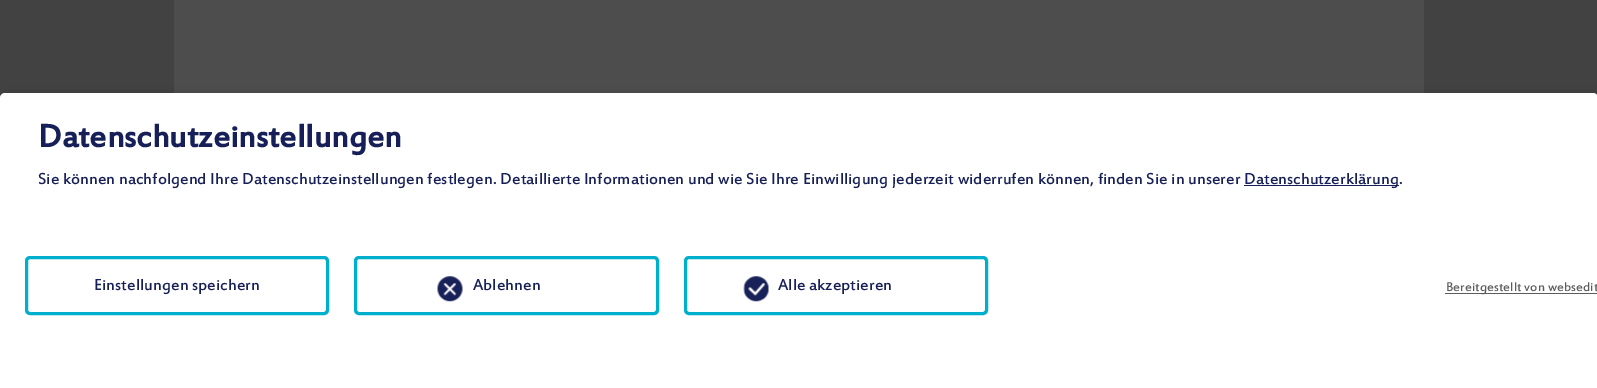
%!PS-Adobe-3.0
%%BoundingBox: 0 0 1597 388
%%LanguageLevel: 3
%%Pages: 1
%%EndComments
%%BeginProlog
/setink { dup -16 bitshift 255 div exch dup -8 bitshift 255 and 255 div exch 255 and 255 div setrgbcolor } def
/usefont { [ exch dup neg 0 0 3 -1 roll 0 0 ] selectfont } def
/setalpha { dup .setfillconstantalpha .setstrokeconstantalpha } def
/rrect { 5 dict begin { /r /h /w /y /x } { exch def } forall
  x r add y moveto x w add y 2 copy h add r arct x w add y h add x 1 index r arct
  x y h add x y r arct x y 2 copy exch w add exch r arct closepath end } def
/softshadow { 12 dict begin { /a /b /q /h /w /y /x } { exch def } forall gsave /was 0 def
  9 -2 -9 { dup b mul 4 div /e exch def 1 sub .425 mul 2.718 exch exp 1 add a .99 .min exch div /now exch def
    1 1 now sub 1 was sub div sub setalpha /was now def
    w h .min e 2 mul add 0 gt { x e sub y e sub w e 2 mul add h e 2 mul add
      q e add b .6 mul add w h .min 2 div e add .min 0 .max rrect fill } if } for grestore end } def
/drawimage { 5 dict begin { /h /w /y /x /name } { exch def } forall
  gsave x y translate w h scale
  w h 8 [w 0 0 h 0 0] name (r) file false 3 colorimage grestore end } def
%%EndProlog
%%BeginSetup
<< /PageSize [1597 388] /PageUsesTransparency true >> setpagedevice
%%EndSetup
%%Page: 1 1
0 .pushpdf14devicefilter
0 388 translate 1 -1 scale
4 setmiterlimit
16#424242 setink
0 0 1597 388 rectfill
16#4D4D4D setink
174 0 1250 93 rectfill
16#000000 setink
6 99 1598 171 5 6 0.19 softshadow
16#FFFFFF setink
0 93 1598 171 5 rrect fill
/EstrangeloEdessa-Bold 35 usefont
16#161F57 setink
38 147 moveto (Datenschutzeinstellungen) show
/EstrangeloEdessa-Regular 17.5 usefont
38 184 moveto (Sie können nachfolgend Ihre Datenschutzeinstellungen festlegen. Detaillierte Informationen und wie Sie Ihre Einwilligung jederzeit widerrufen können, finden Sie in unserer) show
1244 185 155 1 rectfill
1244 184 moveto (Datenschutzerklärung.) show
16#FFFFFF setink
0 259 1597 129 rectfill
16#00AFCB setink
3 setlinewidth
26.5 257.5 301 56 3.5 rrect stroke
16#161F57 setink
94 290 moveto (Einstellungen speichern) show
16#00AFCB setink
355.5 257.5 302 56 3.5 rrect stroke
(img1.raw) 437 276 26 26 drawimage
16#161F57 setink
473 290 moveto (Ablehnen) show
16#00AFCB setink
685.5 257.5 301 56 3.5 rrect stroke
(img2.raw) 743 276 26 26 drawimage
16#161F57 setink
778 290 moveto (Alle akzeptieren) show
16#5C5C5C setink
1445 293 152 1 rectfill
/EstrangeloEdessa-Regular 14 usefont
1446 291 moveto (Bereitgestellt von websedit) show
.poppdf14devicefilter showpage
%%EOF
